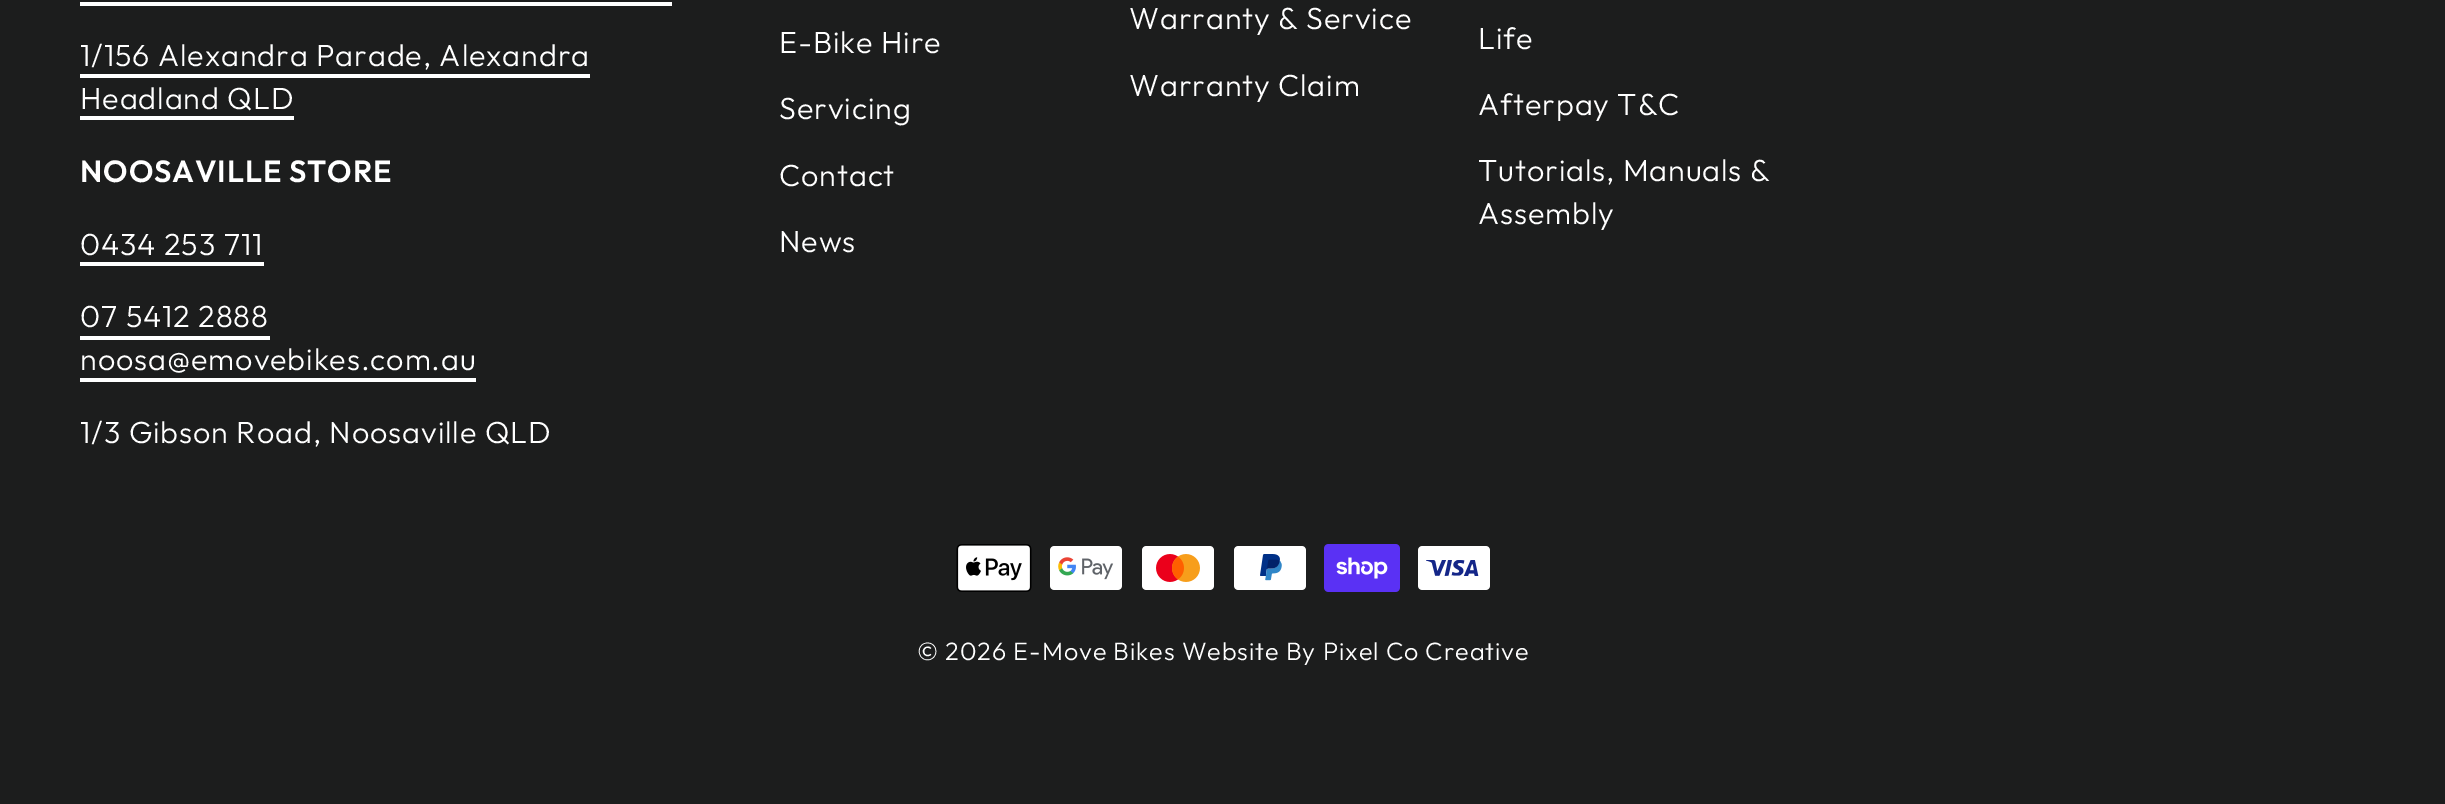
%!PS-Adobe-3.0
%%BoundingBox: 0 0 2445 804
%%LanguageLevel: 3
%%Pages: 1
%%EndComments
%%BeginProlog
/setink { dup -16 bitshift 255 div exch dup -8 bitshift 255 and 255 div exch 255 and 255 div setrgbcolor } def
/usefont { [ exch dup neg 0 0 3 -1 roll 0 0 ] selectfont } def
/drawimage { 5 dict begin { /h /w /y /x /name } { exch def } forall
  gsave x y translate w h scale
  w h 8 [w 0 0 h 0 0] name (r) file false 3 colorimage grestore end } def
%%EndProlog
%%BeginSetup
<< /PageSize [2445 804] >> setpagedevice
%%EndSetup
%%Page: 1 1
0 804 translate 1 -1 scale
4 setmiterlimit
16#1C1D1D setink
0 0 2445 804 rectfill
16#FFFFFF setink
80 2 592 4 rectfill
/Outfit-Light 30.6 usefont
80 66 moveto 0.9 0 (1/156 Alexandra Parade, Alexandra) ashow
80 74 510 4 rectfill
80 109 moveto 0.9 0 (Headland QLD) ashow
80 116 214 4 rectfill
/Outfit-SemiBold 30.6 usefont
80 182 moveto 0.9 0 (NOOSAVILLE STORE) ashow
/Outfit-Light 30.6 usefont
80 255 moveto 0.9 0 (0434 253 711) ashow
80 262 184 4 rectfill
80 327 moveto 0.9 0 (07 5412 2888) ashow
80 336 190 4 rectfill
80 370 moveto 0.9 0 (noosa@emovebikes.com.au) ashow
80 378 396 4 rectfill
80 443 moveto 0.9 0 (1/3 Gibson Road, Noosaville QLD) ashow
779 53 moveto 0.9 0 (E-Bike Hire) ashow
779 119 moveto 0.9 0 (Servicing) ashow
779 186 moveto 0.9 0 (Contact) ashow
779 252 moveto 0.9 0 (News) ashow
1129 29 moveto 0.9 0 (Warranty & Service) ashow
1129 96 moveto 0.9 0 (Warranty Claim) ashow
1478 49 moveto 0.9 0 (Life) ashow
1478 115 moveto 0.9 0 (Afterpay T&C) ashow
1478 181 moveto 0.9 0 (Tutorials, Manuals &) ashow
1478 224 moveto 0.9 0 (Assembly) ashow
(img1.raw) 956 544 76 48 drawimage
(img2.raw) 1050 546 72 44 drawimage
(img3.raw) 1142 546 72 44 drawimage
(img4.raw) 1234 546 72 44 drawimage
(img5.raw) 1324 544 76 48 drawimage
(img6.raw) 1418 546 72 44 drawimage
/Outfit-Light 25.2 usefont
917 660 moveto 0.9 0 (© 2026 E-Move Bikes Website By Pixel Co Creative) ashow
showpage
%%EOF
